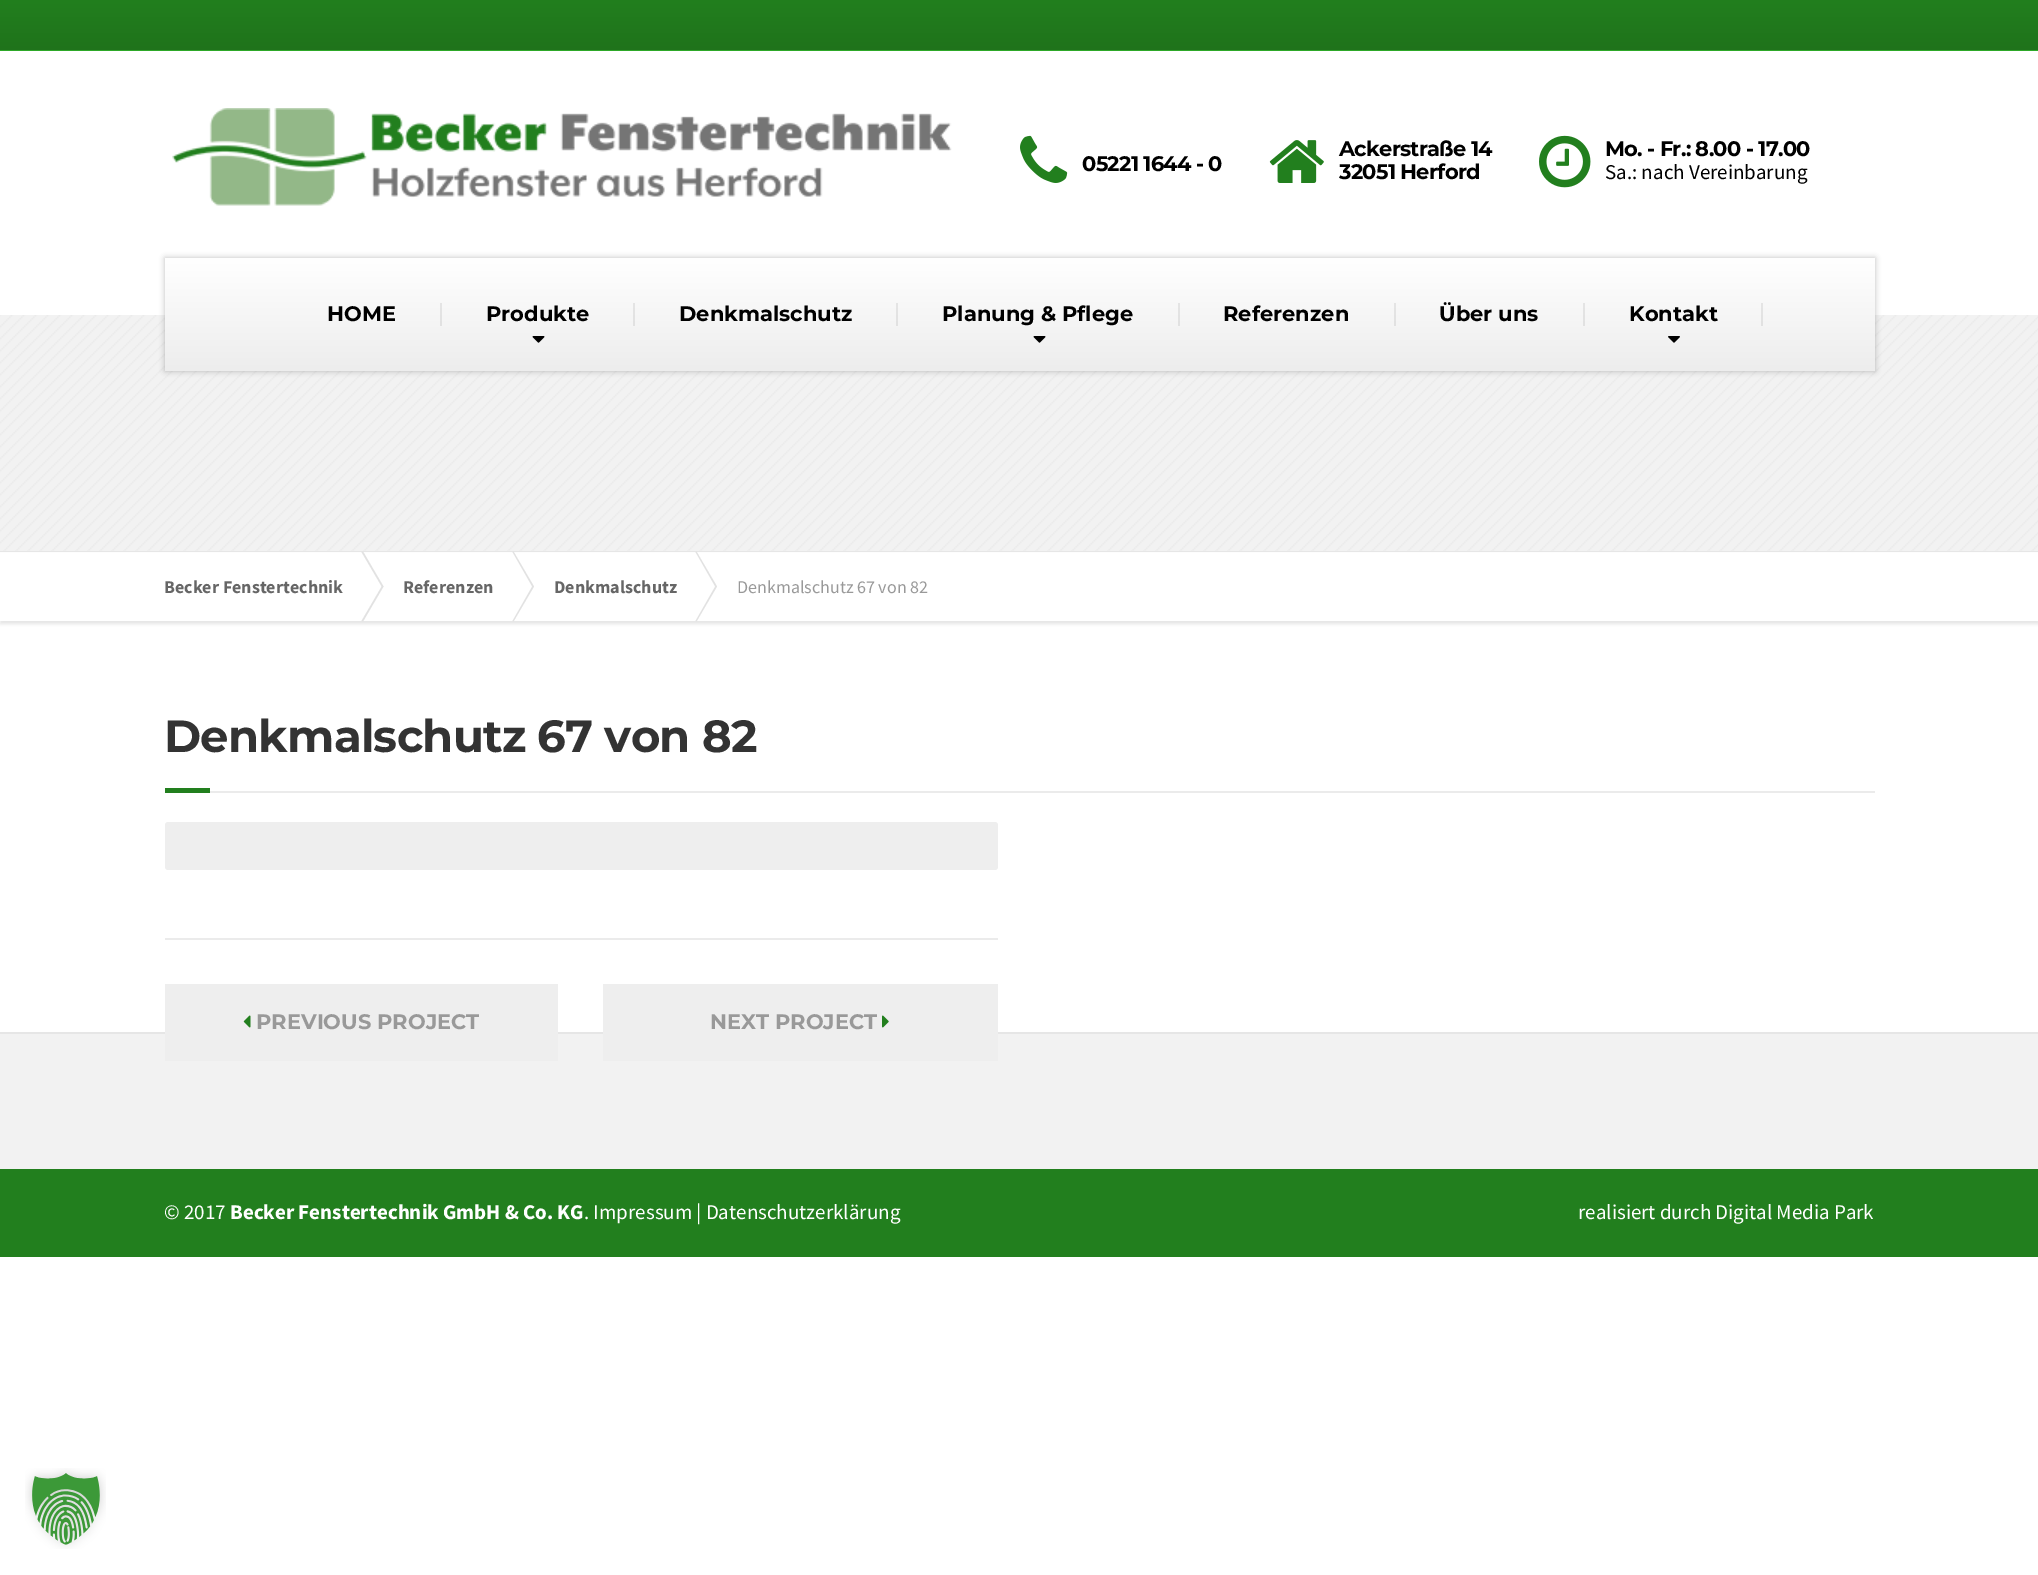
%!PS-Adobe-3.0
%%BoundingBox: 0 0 2038 1575
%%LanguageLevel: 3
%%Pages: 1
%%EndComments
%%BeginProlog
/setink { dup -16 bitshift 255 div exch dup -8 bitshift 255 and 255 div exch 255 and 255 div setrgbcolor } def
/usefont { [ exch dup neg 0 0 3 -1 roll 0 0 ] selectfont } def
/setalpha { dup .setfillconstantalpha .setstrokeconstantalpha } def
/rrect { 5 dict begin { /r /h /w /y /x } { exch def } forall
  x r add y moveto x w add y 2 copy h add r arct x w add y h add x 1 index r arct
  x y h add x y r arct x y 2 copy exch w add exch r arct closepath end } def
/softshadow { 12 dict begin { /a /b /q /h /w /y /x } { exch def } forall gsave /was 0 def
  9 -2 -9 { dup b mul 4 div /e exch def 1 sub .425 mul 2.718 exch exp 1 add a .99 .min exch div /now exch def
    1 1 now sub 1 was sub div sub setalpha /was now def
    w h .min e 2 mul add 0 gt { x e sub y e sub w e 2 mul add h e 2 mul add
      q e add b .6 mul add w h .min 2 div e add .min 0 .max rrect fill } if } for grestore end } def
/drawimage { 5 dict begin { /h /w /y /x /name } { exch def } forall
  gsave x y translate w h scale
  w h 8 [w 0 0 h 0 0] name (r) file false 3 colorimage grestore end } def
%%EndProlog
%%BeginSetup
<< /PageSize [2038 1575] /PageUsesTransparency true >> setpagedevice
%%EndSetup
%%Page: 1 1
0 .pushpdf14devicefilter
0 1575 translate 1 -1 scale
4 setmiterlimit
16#FFFFFF setink
0 0 2038 1575 rectfill
gsave 0 0 moveto 2038 0 lineto 2038 50 lineto 0 50 lineto closepath clip newpath
<< /ShadingType 2 /ColorSpace /DeviceRGB /Coords [1019 0 1019 50] /Extend [true true] /Function << /FunctionType 2 /Domain [0 1] /C0 [0.133 0.498 0.118] /C1 [0.122 0.451 0.106] /N 1 >> >> shfill grestore
16#2DA828 setink
0 50 2038 1 rectfill
(img1.raw) 172 108 780 98 drawimage
(img2.raw) 1020 135 48 48 drawimage
/Montserrat-Bold 21 usefont
16#000000 setink
1082 171 moveto -0.75 0 (05221 1644 - 0) ashow
(img3.raw) 1269 140 55 43 drawimage
1339 156 moveto -0.75 0 (Ackerstraße 14) ashow
1339 179 moveto -0.75 0 (32051 Herford) ashow
(img4.raw) 1539 135 52 53 drawimage
1605 156 moveto -0.75 0 (Mo. - Fr.: 8.00 - 17.00) ashow
/SourceSansPro-Regular 21 usefont
1605 179 moveto (Sa.: nach Vereinbarung) show
16#F2F2F2 setink
0 315 2038 236 rectfill
(img7.raw) 0 315 2038 236 drawimage
16#000000 setink
165 258 1710 113 0 3 0.25 softshadow
gsave 165 258 moveto 1875 258 lineto 1875 371 lineto 165 371 lineto closepath clip newpath
<< /ShadingType 2 /ColorSpace /DeviceRGB /Coords [1020 258 1020 371] /Extend [true true] /Function << /FunctionType 2 /Domain [0 1] /C0 [1 1 1] /C1 [0.929 0.929 0.929] /N 1 >> >> shfill grestore
/Montserrat-Bold 21 usefont
327 321 moveto (HOME) show
0.08 setalpha
440 303 2 23 rectfill
1 setalpha
486 321 moveto (Produkte) show
0.08 setalpha
633 303 2 23 rectfill
1 setalpha
(img5.raw) 532 336 13 7 drawimage
679 321 moveto (Denkmalschutz) show
0.08 setalpha
896 303 2 23 rectfill
1 setalpha
942 321 moveto (Planung & Pflege) show
0.08 setalpha
1178 303 2 23 rectfill
1 setalpha
(img5.raw) 1033 336 13 7 drawimage
1223 321 moveto (Referenzen) show
0.08 setalpha
1394 303 2 23 rectfill
1 setalpha
1439 321 moveto (Über uns) show
0.08 setalpha
1583 303 2 23 rectfill
1 setalpha
1629 321 moveto (Kontakt) show
0.08 setalpha
1761 303 2 23 rectfill
1 setalpha
(img6.raw) 1668 336 12 7 drawimage
16#E6E6E6 setink
0 551 2038 1 rectfill
0 555 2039 69 0 1.5 1 softshadow
16#FFFFFF setink
0 553 2038 68 rectfill
/SourceSansPro-Bold 18 usefont
16#666666 setink
164 593 moveto (Becker Fenstertechnik) show
16#E2E2E2 setink
361.5 552 moveto 363 551.5 lineto 383.5 586.5 lineto 382 587 lineto closepath fill
382 586 moveto 383.5 586.5 lineto 363 621.5 lineto 361.5 621 lineto closepath fill
16#666666 setink
403 593 moveto (Referenzen) show
16#E2E2E2 setink
512.5 552 moveto 513.5 551.5 lineto 534 586.5 lineto 532.5 587 lineto closepath fill
532.5 586 moveto 534 586.5 lineto 513.5 621.5 lineto 512.5 621 lineto closepath fill
16#666666 setink
554 593 moveto (Denkmalschutz) show
16#E2E2E2 setink
695.5 552 moveto 696.5 551.5 lineto 717 586.5 lineto 715.5 587 lineto closepath fill
715.5 586 moveto 717 586.5 lineto 696.5 621.5 lineto 695.5 621 lineto closepath fill
/SourceSansPro-Regular 18 usefont
16#999999 setink
737 593 moveto (Denkmalschutz 67 von 82) show
16#EBEBEB setink
210 791 1665 2 rectfill
/Montserrat-Bold 45 usefont
16#333333 setink
164 752 moveto -0.75 0 (Denkmalschutz 67 von 82) ashow
16#227F1E setink
165 788 45 5 rectfill
16#EEEEEE setink
165 822 833 48 3 rrect fill
[
    [165 938 833 2 16#EBEBEB]
    [0 1034 2038 135 16#F2F2F2]
    [0 1032 2038 2 16#E6E6E6]
    [165 984 393 77 16#EEEEEE]
] { aload pop setink rectfill } forall
(img8.raw) 243 1015 8 13 drawimage
/Montserrat-Bold 21 usefont
16#999999 setink
256 1029 moveto (PREVIOUS PROJECT) show
16#EEEEEE setink
603 984 395 77 rectfill
16#999999 setink
710 1029 moveto (NEXT PROJECT) show
(img9.raw) 882 1015 7 13 drawimage
16#227F1E setink
0 1169 2038 88 rectfill
/SourceSansPro-Regular 21 usefont
16#FFFFFF setink
164 1219 moveto (© 2017) show
/SourceSansPro-Bold 21 usefont
230 1219 moveto (Becker Fenstertechnik GmbH & Co. KG) show
/SourceSansPro-Regular 21 usefont
584 1219 moveto (. Impressum | Datenschutzerklärung) show
1578 1219 moveto (realisiert durch Digital Media Park) show
(img10.raw) 25 1468 81 81 drawimage
.poppdf14devicefilter showpage
%%EOF
